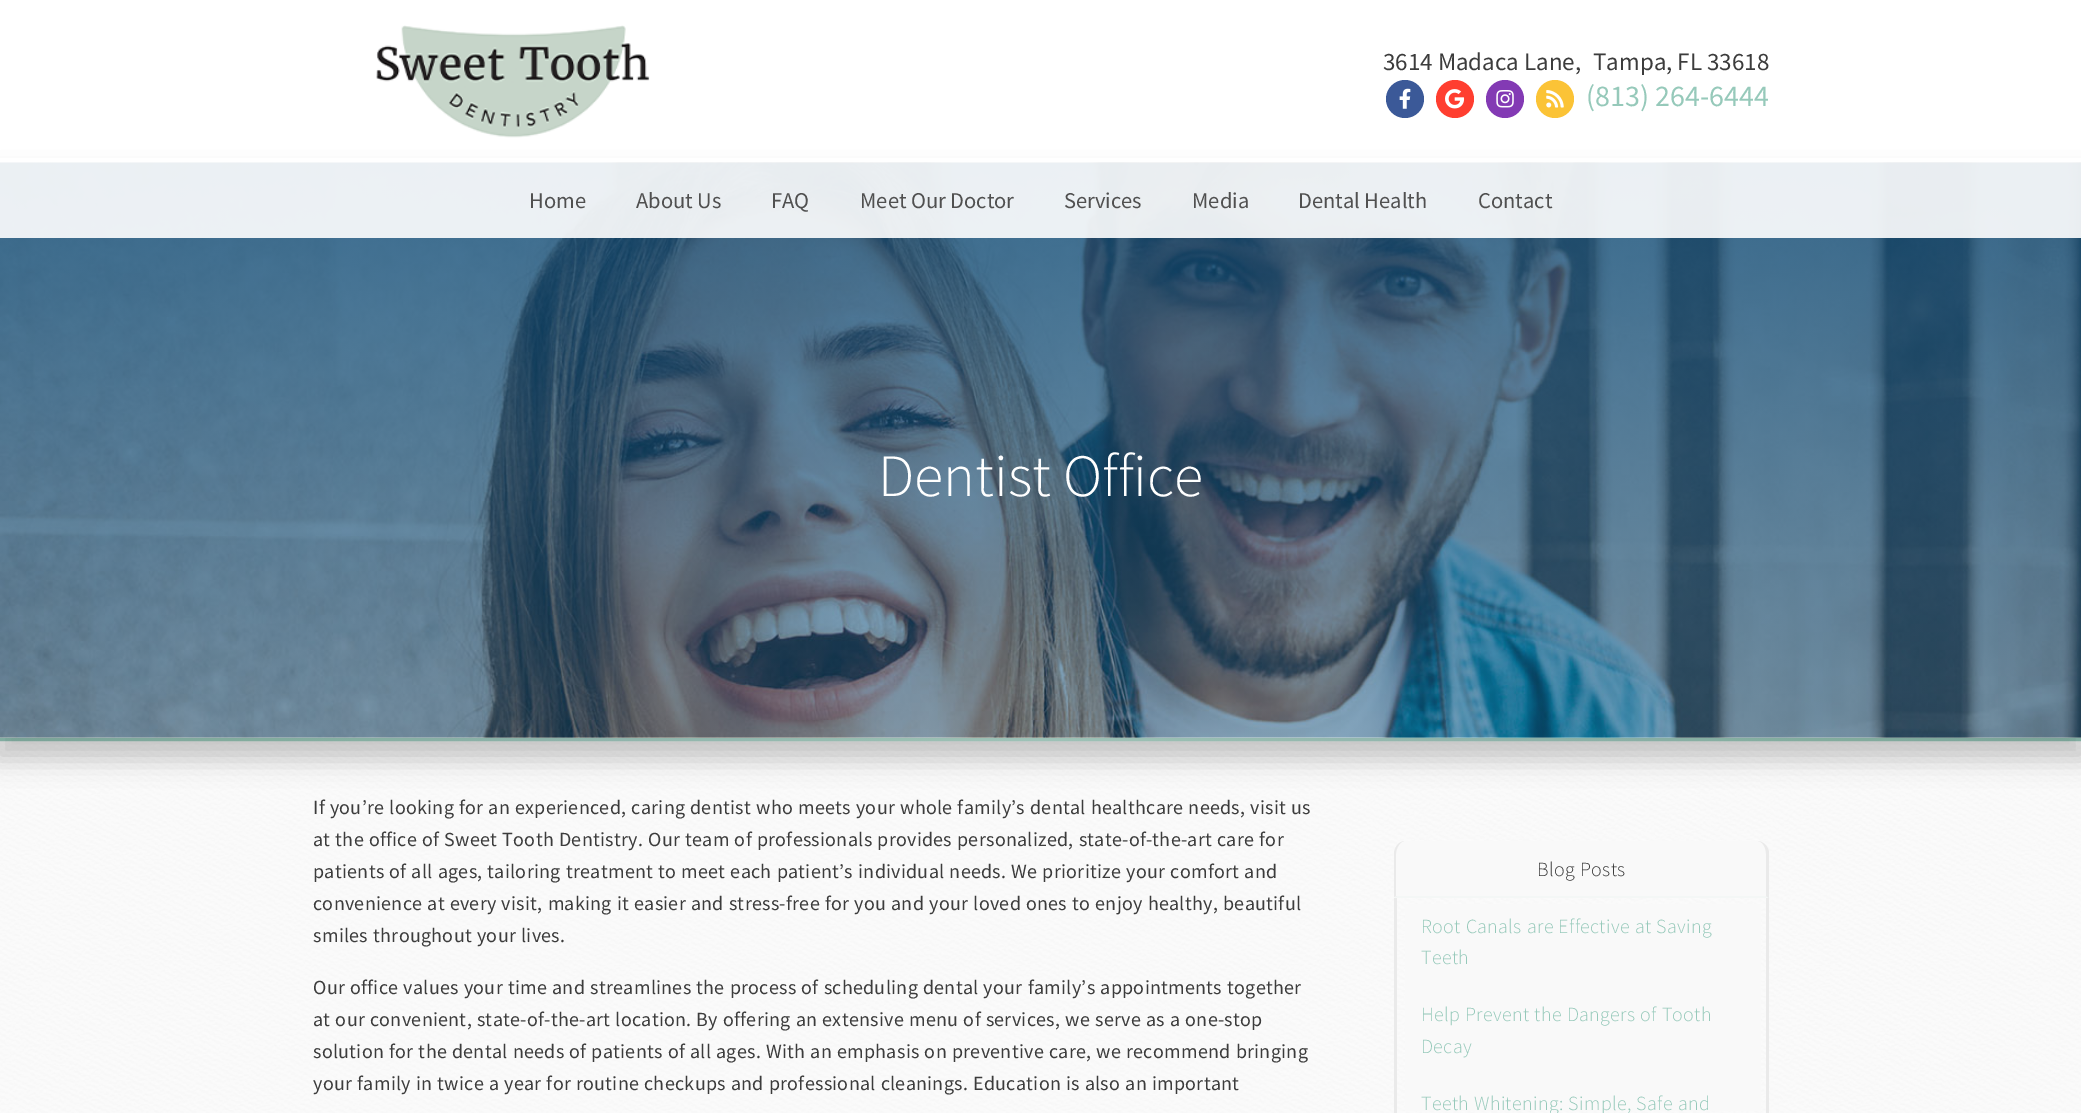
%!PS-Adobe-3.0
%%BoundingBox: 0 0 2081 1113
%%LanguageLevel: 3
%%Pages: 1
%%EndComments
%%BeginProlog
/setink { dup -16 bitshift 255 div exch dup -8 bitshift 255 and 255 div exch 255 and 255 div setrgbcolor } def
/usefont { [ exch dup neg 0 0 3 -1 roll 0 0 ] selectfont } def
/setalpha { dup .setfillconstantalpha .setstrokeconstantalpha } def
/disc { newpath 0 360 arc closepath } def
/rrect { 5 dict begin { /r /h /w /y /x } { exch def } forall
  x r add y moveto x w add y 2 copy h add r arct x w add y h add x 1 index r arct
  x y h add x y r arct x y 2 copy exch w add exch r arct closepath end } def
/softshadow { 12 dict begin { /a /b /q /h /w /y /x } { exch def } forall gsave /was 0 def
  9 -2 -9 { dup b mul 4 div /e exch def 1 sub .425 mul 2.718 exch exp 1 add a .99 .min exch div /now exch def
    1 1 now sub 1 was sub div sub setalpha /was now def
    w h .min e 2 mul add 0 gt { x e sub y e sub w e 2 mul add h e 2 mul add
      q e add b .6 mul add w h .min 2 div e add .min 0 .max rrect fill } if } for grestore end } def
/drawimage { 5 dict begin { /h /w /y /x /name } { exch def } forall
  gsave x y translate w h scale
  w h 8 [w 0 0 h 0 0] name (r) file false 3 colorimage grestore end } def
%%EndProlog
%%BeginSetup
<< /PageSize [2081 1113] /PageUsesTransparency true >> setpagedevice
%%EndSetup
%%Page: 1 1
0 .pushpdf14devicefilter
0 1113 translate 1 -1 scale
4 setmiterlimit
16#FFFFFF setink
0 0 2081 1113 rectfill
(img8.raw) 0 741 2081 372 drawimage
(img6.raw) 0 737 2081 5 drawimage
16#000000 setink
-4 178 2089 582 0 12.5 0.2 softshadow
(img7.raw) 0 162 2081 576 drawimage
0.9 setalpha
16#FFFFFF setink
0 158 2081 5 rectfill
1 setalpha
(img1.raw) 376 25 274 113 drawimage
/SourceSansPro-Regular 25 usefont
16#3C3C3C setink
1383 70 moveto (3614 Madaca Lane,) show
1593 70 moveto (Tampa, FL 33618) show
16#3B5998 setink
1405 99 19 disc fill
(img2.raw) 1399 88 12 21 drawimage
16#FF3E30 setink
1455 99 19 disc fill
(img3.raw) 1445 89 20 20 drawimage
16#833AB4 setink
1505 99 19 disc fill
(img4.raw) 1496 90 18 18 drawimage
16#FBC336 setink
1555 99 19 disc fill
(img5.raw) 1546 90 18 18 drawimage
/SourceSansPro-Regular 30 usefont
16#96C9BA setink
1586 106 moveto (\(813\) 264-6444) show
0.9 setalpha
16#FFFFFF setink
0 163 2081 75 rectfill
/SourceSansPro-Regular 22.5 usefont
1 setalpha
16#505050 setink
[
    [(Home) 529 208]
    [(About Us) 636 208]
    [(FAQ) 771 208]
    [(Meet Our Doctor) 860 208]
    [(Services) 1064 208]
    [(Media) 1192 208]
    [(Dental Health) 1298 208]
    [(Contact) 1478 208]
] { aload pop moveto show } forall
/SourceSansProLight-Light 60 usefont
16#FFFFFF setink
878 496 moveto (Dentist Office) show
/SourceSansPro-Regular 20 usefont
16#3C3C3C setink
313 814 moveto 0.6 0 32 0.31 0 (If you’re looking for an experienced, caring dentist who meets your whole family’s dental healthcare needs, visit us) awidthshow
313 846 moveto 0.6 0 32 0.31 0 (at the office of Sweet Tooth Dentistry. Our team of professionals provides personalized, state-of-the-art care for) awidthshow
313 878 moveto 0.6 0 32 0.31 0 (patients of all ages, tailoring treatment to meet each patient’s individual needs. We prioritize your comfort and) awidthshow
313 910 moveto 0.6 0 32 0.31 0 (convenience at every visit, making it easier and stress-free for you and your loved ones to enjoy healthy, beautiful) awidthshow
313 942 moveto 0.6 0 32 0.31 0 (smiles throughout your lives.) awidthshow
313 994 moveto 0.6 0 32 0.31 0 (Our office values your time and streamlines the process of scheduling dental your family’s appointments together) awidthshow
313 1026 moveto 0.6 0 32 0.31 0 (at our convenient, state-of-the-art location. By offering an extensive menu of services, we serve as a one-stop) awidthshow
313 1058 moveto 0.6 0 32 0.31 0 (solution for the dental needs of patients of all ages. With an emphasis on preventive care, we recommend bringing) awidthshow
313 1090 moveto 0.6 0 32 0.31 0 (your family in twice a year for routine checkups and professional cleanings. Education is also an important) awidthshow
16#F9F9F9 setink
1407 841 moveto 1756 841 lineto 1763 841 1769 847 1769 854 curveto 1769 898 lineto 1394 898 lineto 1394 854 lineto 1394 847 1400 841 1407 841 curveto closepath fill
16#EAEAEA setink
1766 896 moveto 1766 854 lineto 1766 848 1763 842 1758 841 curveto 1764 842 1768 846 1769 852 curveto 1769 898 lineto closepath fill
0.05 setalpha
16#96C9BA setink
1769 898 moveto 1394 898 lineto 1397 896 lineto 1766 896 lineto closepath fill
1 setalpha
16#EAEAEA setink
1404 841 moveto 1400 842 1396 848 1396 854 curveto 1396 896 lineto 1397 896 lineto 1394 897 lineto 1394 854 lineto 1394 848 1398 842 1404 841 curveto closepath fill
/SourceSansProLight-Light 20 usefont
16#3C3C3C setink
1537 876 moveto 0.6 0 32 0.31 0 (Blog Posts) awidthshow
[
    [1405 904 356 207 16#F9F9F9]
    [1766 898 3 215 16#EAEAEA]
    [1394 898 3 215 16#EAEAEA]
] { aload pop setink rectfill } forall
16#96C9BA setink
1421 933 moveto 0.6 0 32 0.31 0 (Root Canals are Effective at Saving) awidthshow
1421 964 moveto 0.31 0 (Teeth) ashow
1421 1021 moveto 0.6 0 32 0.31 0 (Help Prevent the Dangers of Tooth) awidthshow
1421 1053 moveto 0.31 0 (Decay) ashow
1421 1110 moveto 0.6 0 32 0.31 0 (Teeth Whitening: Simple, Safe and) awidthshow
.poppdf14devicefilter showpage
%%EOF
